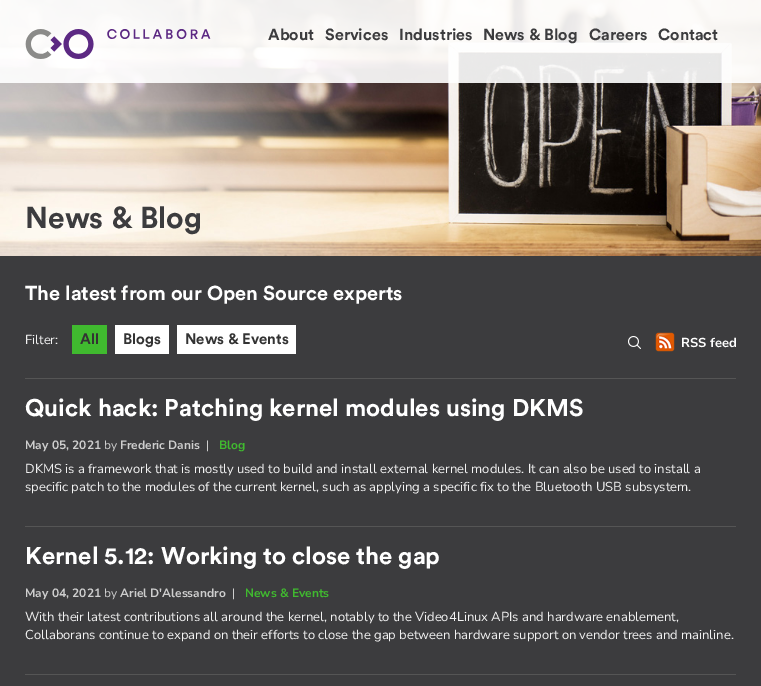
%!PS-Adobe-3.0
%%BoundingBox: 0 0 761 686
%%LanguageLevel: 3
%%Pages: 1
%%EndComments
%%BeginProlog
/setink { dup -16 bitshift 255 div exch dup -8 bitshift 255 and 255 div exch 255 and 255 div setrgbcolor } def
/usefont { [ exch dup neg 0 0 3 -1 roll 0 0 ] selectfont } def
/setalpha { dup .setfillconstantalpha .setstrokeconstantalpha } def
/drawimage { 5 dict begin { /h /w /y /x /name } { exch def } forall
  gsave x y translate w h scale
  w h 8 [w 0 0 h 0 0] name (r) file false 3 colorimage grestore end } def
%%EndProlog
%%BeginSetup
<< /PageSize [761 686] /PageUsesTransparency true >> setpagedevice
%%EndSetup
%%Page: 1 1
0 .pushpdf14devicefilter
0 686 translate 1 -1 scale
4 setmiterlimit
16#3C3C3E setink
0 0 761 686 rectfill
(img2.raw) 0 0 761 256 drawimage
0.7 setalpha
16#FFFFFF setink
0 0 761 83 rectfill
0.67 setalpha
0 0 761 83 rectfill
1 setalpha
(img1.raw) 25 29 186 30 drawimage
/Circular-Bold 16 usefont
16#3C3C3E setink
[
    [(About) 268 40]
    [(Services) 325 40]
    [(Industries) 399 40]
    [(News & Blog) 483 40]
    [(Careers) 589 40]
    [(Contact) 658 40]
] { aload pop moveto show } forall
/Circular-Bold 30 usefont
25 228 moveto (News & Blog) show
/Circular-Bold 20 usefont
16#FFFFFF setink
25 300 moveto (The latest from our Open Source experts) show
/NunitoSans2-ExtraLight 13 usefont
16#F2F2F2 setink
25 344 moveto (Filter:) show
16#40BA2F setink
72 325 35 29 rectfill
/Circular-Bold 15 usefont
16#333333 setink
80 344 moveto (All) show
16#FFFFFF setink
115 325 54 29 rectfill
16#333333 setink
123 344 moveto (Blogs) show
16#FFFFFF setink
177 325 119 29 rectfill
16#333333 setink
185 344 moveto (News & Events) show
(img3.raw) 628 336 13 13 drawimage
(img4.raw) 655 332 20 20 drawimage
/NunitoSans-ExtraLight 13 usefont
16#FFFFFF setink
681 347 moveto (RSS feed) show
16#555555 setink
25 378 711 1 rectfill
25 526 711 1 rectfill
/Circular-Bold 24 usefont
16#FFFFFF setink
25 416 moveto (Quick hack: Patching kernel modules using DKMS) show
/NunitoSans-ExtraLight 12 usefont
16#CECECE setink
25 449 moveto (May 05, 2021) show
/NunitoSans2-ExtraLight 12 usefont
104 449 moveto (by) show
/NunitoSans-ExtraLight 12 usefont
120 449 moveto (Frederic Danis) show
/NunitoSans2-ExtraLight 12 usefont
206 449 moveto (|) show
/NunitoSans-ExtraLight 12 usefont
16#40BA2F setink
219 449 moveto (Blog) show
/NunitoSans2-ExtraLight 13 usefont
16#F2F2F2 setink
25 473 moveto (DKMS is a framework that is mostly used to build and install external kernel modules. It can also be used to install a) show
25 491 moveto (specific patch to the modules of the current kernel, such as applying a specific fix to the Bluetooth USB subsystem.) show
16#555555 setink
25 674 711 1 rectfill
/Circular-Bold 24 usefont
16#FFFFFF setink
25 564 moveto (Kernel 5.12: Working to close the gap) show
/NunitoSans-ExtraLight 12 usefont
16#CECECE setink
25 597 moveto (May 04, 2021) show
/NunitoSans2-ExtraLight 12 usefont
104 597 moveto (by) show
/NunitoSans-ExtraLight 12 usefont
120 597 moveto (Ariel D'Alessandro) show
/NunitoSans2-ExtraLight 12 usefont
232 597 moveto (|) show
/NunitoSans-ExtraLight 12 usefont
16#40BA2F setink
245 597 moveto (News & Events) show
/NunitoSans2-ExtraLight 13 usefont
16#F2F2F2 setink
25 621 moveto (With their latest contributions all around the kernel, notably to the Video4Linux APIs and hardware enablement,) show
25 639 moveto (Collaborans continue to expand on their efforts to close the gap between hardware support on vendor trees and mainline.) show
.poppdf14devicefilter showpage
%%EOF
